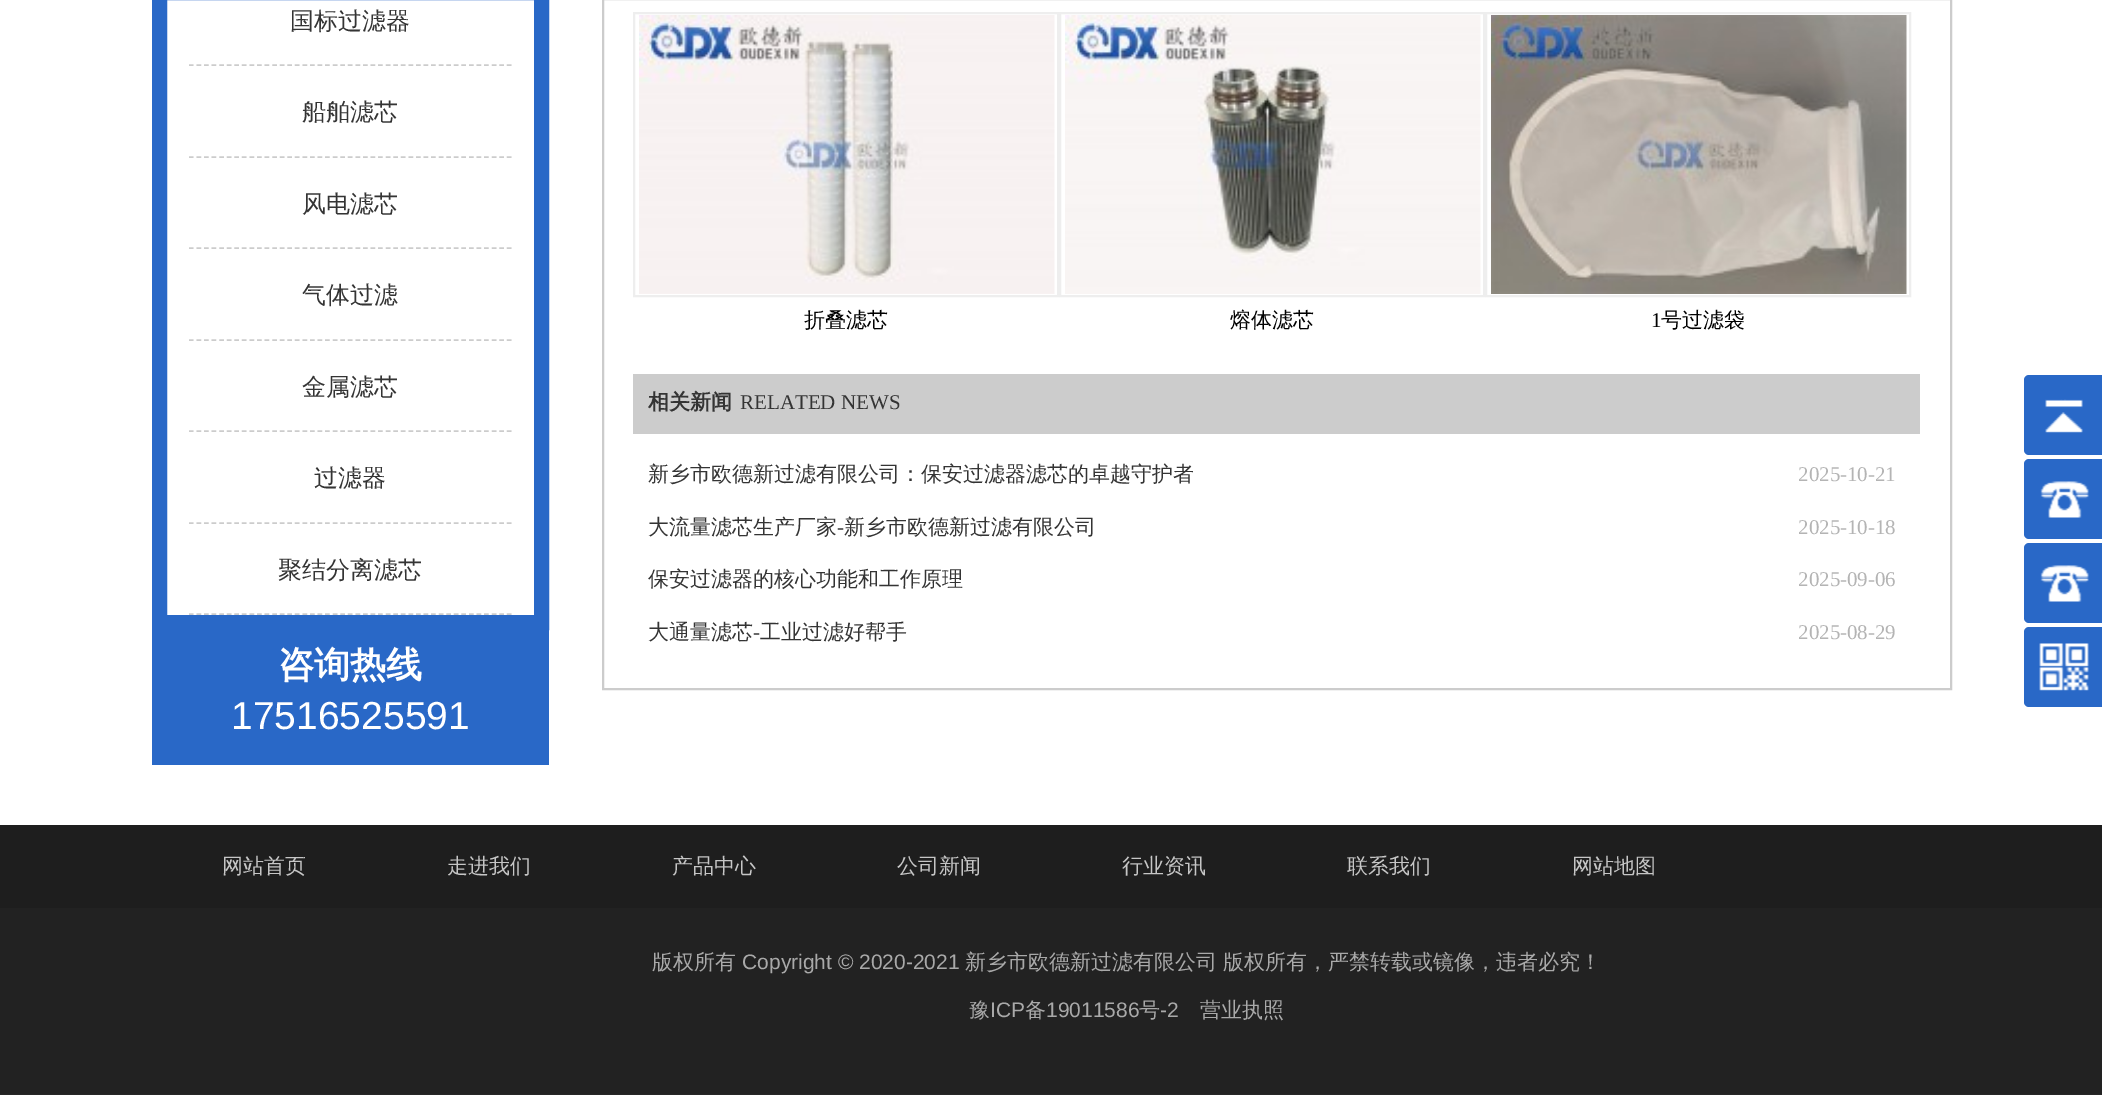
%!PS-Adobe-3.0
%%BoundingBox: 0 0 2102 1095
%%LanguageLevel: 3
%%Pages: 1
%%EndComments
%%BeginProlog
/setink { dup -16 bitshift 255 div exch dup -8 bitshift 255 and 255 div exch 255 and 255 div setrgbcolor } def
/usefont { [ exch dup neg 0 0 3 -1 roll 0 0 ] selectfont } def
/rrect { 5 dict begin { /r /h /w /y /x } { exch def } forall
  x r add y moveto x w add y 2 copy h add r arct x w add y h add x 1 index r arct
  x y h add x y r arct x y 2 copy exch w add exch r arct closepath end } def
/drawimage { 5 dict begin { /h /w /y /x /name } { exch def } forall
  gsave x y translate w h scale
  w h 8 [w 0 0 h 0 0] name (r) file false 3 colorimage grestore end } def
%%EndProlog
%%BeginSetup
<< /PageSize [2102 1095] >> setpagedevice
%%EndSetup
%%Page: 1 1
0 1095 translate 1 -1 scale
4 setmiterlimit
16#FFFFFF setink
0 0 2102 1095 rectfill
16#2968C7 setink
15 setlinewidth
159.5 -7.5 382 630 rectstroke
16#CCCCCC setink
1.5 setlinewidth
[4.5 3.07] 0 setdash
189 65 moveto 511.5 65 lineto stroke
/WenQuanYiZenHei-Medium 24 usefont
16#343434 setink
290 29 moveto (国标过滤器) show
16#CCCCCC setink
189 157 moveto 511.5 157 lineto stroke
16#343434 setink
302 120 moveto (船舶滤芯) show
16#CCCCCC setink
189 248 moveto 511.5 248 lineto stroke
16#343434 setink
302 212 moveto (风电滤芯) show
16#CCCCCC setink
189 340 moveto 511.5 340 lineto stroke
16#343434 setink
302 303 moveto (气体过滤) show
16#CCCCCC setink
189 431 moveto 511.5 431 lineto stroke
16#343434 setink
302 395 moveto (金属滤芯) show
16#CCCCCC setink
189 523 moveto 511.5 523 lineto stroke
16#343434 setink
314 486 moveto (过滤器) show
16#CCCCCC setink
189 614 moveto 511.5 614 lineto stroke
16#343434 setink
278 578 moveto (聚结分离滤芯) show
16#2968C7 setink
152 630 397 135 rectfill
/WenQuanYiZenHei-Bold 36 usefont
16#FFFFFF setink
278 677 moveto (咨询热线) show
/LiberationSans-Regular 39 usefont
231 729 moveto (17516525591) show
16#CCCCCC setink
2 setlinewidth
[] 0 setdash
603 -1 1348 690 rectstroke
16#EEEEEE setink
634 13 424 283 rectstroke
(img1.raw) 639 15 416 279 drawimage
/WenQuanYiZenHei-Medium 21 usefont
16#000000 setink
804 327 moveto (折叠滤芯) show
16#EEEEEE setink
1060 13 424 283 rectstroke
(img2.raw) 1065 15 416 279 drawimage
16#000000 setink
1230 327 moveto (熔体滤芯) show
16#EEEEEE setink
1486 13 424 283 rectstroke
(img3.raw) 1491 15 416 279 drawimage
/LiberationSerif-Regular 21 usefont
16#000000 setink
1651 327 moveto (1) show
/WenQuanYiZenHei-Medium 21 usefont
1661 327 moveto (号过滤袋) show
16#CCCCCC setink
633 374 1287 60 rectfill
/WenQuanYiZenHei-Bold 21 usefont
16#343434 setink
648 409 moveto (相关新闻) show
/LiberationSerif-Regular 21 usefont
740 409 moveto (RELATED NEWS) show
/WenQuanYiZenHei-Medium 21 usefont
648 481 moveto (新乡市欧德新过滤有限公司：保安过滤器滤芯的卓越守护者) show
/LiberationSerif-Regular 21 usefont
16#B4B4B4 setink
1798 481 moveto (2025-10-21) show
/WenQuanYiZenHei-Medium 21 usefont
16#343434 setink
648 534 moveto (大流量滤芯生产厂家) show
/LiberationSerif-Regular 21 usefont
837 534 moveto (-) show
/WenQuanYiZenHei-Medium 21 usefont
844 534 moveto (新乡市欧德新过滤有限公司) show
/LiberationSerif-Regular 21 usefont
16#B4B4B4 setink
1798 534 moveto (2025-10-18) show
/WenQuanYiZenHei-Medium 21 usefont
16#343434 setink
648 586 moveto (保安过滤器的核心功能和工作原理) show
/LiberationSerif-Regular 21 usefont
16#B4B4B4 setink
1798 586 moveto (2025-09-06) show
/WenQuanYiZenHei-Medium 21 usefont
16#343434 setink
648 639 moveto (大通量滤芯) show
/LiberationSerif-Regular 21 usefont
753 639 moveto (-) show
/WenQuanYiZenHei-Medium 21 usefont
760 639 moveto (工业过滤好帮手) show
/LiberationSerif-Regular 21 usefont
16#B4B4B4 setink
1798 639 moveto (2025-08-29) show
16#2968C7 setink
2024 375 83 80 5 rrect fill
(img4.raw) 2045 399 38 34 drawimage
2024 459 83 80 5 rrect fill
(img5.raw) 2040 481 49 37 drawimage
2024 543 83 80 5 rrect fill
(img5.raw) 2040 565 49 37 drawimage
2024 627 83 80 5 rrect fill
(img6.raw) 2039 643 50 48 drawimage
16#1E1E1E setink
0 825 2102 83 rectfill
/WenQuanYiZenHei-Medium 21 usefont
16#C6C6C6 setink
[
    [(网站首页) 222 873]
    [(走进我们) 447 873]
    [(产品中心) 672 873]
    [(公司新闻) 897 873]
    [(行业资讯) 1122 873]
    [(联系我们) 1347 873]
    [(网站地图) 1572 873]
] { aload pop moveto show } forall
16#222222 setink
0 908 2102 186 rectfill
16#272727 setink
0 1094 2102 1 rectfill
16#A9A9A9 setink
652 969 moveto (版权所有) show
/LiberationSans-Regular 21 usefont
742 969 moveto (Copyright © 2020-2021) show
/WenQuanYiZenHei-Medium 21 usefont
[
    [(新乡市欧德新过滤有限公司) 965 969]
    [(版权所有，严禁转载或镜像，违者必究！) 1223 969]
    [(豫) 969 1017]
] { aload pop moveto show } forall
/LiberationSans-Regular 21 usefont
990 1017 moveto (ICP) show
/WenQuanYiZenHei-Medium 21 usefont
1025 1017 moveto (备) show
/LiberationSans-Regular 21 usefont
1046 1017 moveto (19011586) show
/WenQuanYiZenHei-Medium 21 usefont
1139 1017 moveto (号) show
/LiberationSans-Regular 21 usefont
1160 1017 moveto (-2) show
/WenQuanYiZenHei-Medium 21 usefont
1200 1017 moveto (营业执照) show
showpage
%%EOF
